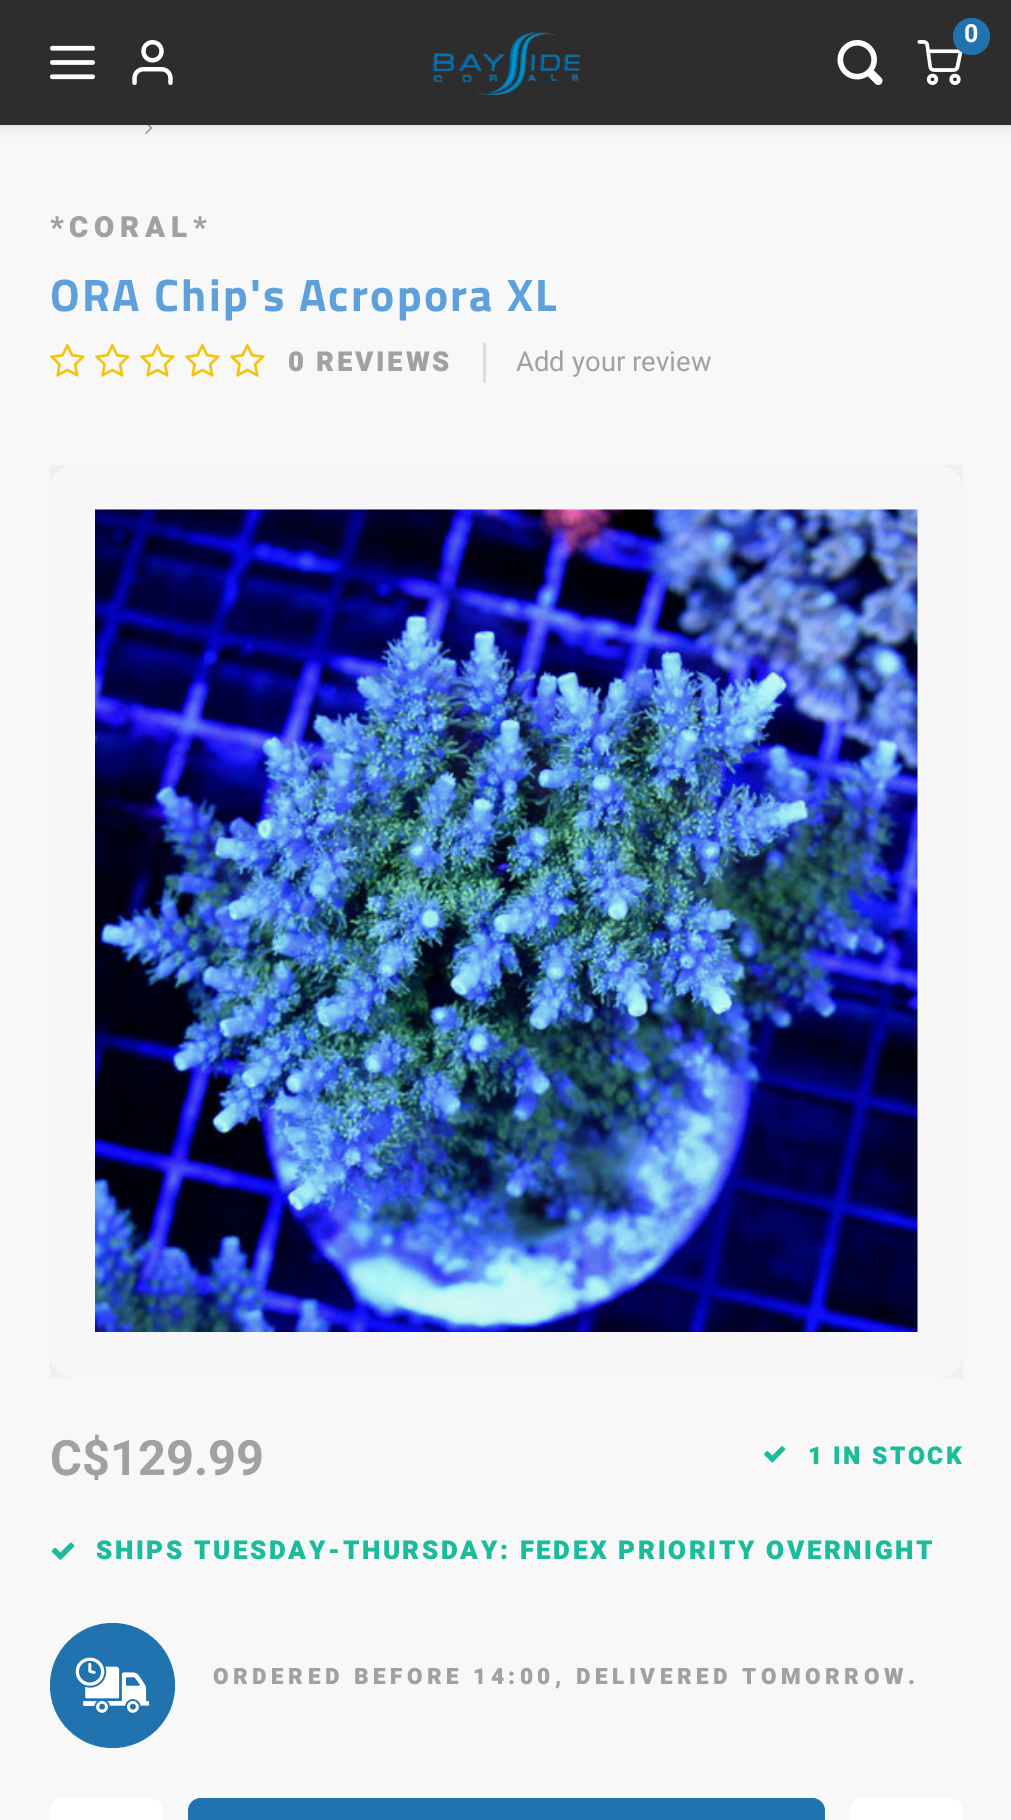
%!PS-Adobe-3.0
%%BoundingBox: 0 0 1011 1820
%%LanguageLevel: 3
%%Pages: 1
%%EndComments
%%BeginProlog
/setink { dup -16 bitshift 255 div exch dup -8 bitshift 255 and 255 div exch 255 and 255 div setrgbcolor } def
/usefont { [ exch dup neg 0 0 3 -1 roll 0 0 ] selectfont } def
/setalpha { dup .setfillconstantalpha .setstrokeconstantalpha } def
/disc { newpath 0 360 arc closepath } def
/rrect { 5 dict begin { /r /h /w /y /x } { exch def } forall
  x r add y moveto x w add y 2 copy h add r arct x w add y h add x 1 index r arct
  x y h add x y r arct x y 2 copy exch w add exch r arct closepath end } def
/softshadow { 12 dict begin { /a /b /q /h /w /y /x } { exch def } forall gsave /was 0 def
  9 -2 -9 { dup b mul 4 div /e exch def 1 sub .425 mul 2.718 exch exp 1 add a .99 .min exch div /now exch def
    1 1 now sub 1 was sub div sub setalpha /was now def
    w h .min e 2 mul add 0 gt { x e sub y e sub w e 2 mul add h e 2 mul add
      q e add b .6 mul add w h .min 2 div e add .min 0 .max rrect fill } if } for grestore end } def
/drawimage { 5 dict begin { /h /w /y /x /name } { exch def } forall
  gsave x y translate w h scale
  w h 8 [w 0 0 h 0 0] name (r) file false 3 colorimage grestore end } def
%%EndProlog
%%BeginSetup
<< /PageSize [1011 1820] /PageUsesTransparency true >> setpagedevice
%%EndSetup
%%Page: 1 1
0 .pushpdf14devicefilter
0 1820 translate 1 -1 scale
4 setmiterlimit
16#F8F8F8 setink
0 0 1011 1820 rectfill
(img6.raw) 145 125 8 9 drawimage
16#000000 setink
0 3 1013 125 0 5 0.08 softshadow
16#2D2D2D setink
0 0 1011 125 rectfill
(img1.raw) 50 45 45 35 drawimage
(img2.raw) 132 40 41 45 drawimage
(img3.raw) 432 32 148 63 drawimage
(img4.raw) 917 40 46 45 drawimage
16#2173AF setink
971.5 36.5 18.5 disc fill
/Heebo-Bold 25 usefont
16#FFFFFF setink
964 42 moveto (0) show
(img5.raw) 837 40 46 45 drawimage
/Heebo-Black 29.25 usefont
16#A1A1A1 setink
50 237 moveto 5.75 0 (*CORAL*) ashow
/TitilliumWeb-Bold 45.5 usefont
16#5DA0DB setink
50 311 moveto 2.25 0 (ORA Chip's Acropora XL) ashow
(img7.raw) 50 343 35 34 drawimage
(img7.raw) 95 343 35 34 drawimage
(img7.raw) 140 343 35 34 drawimage
(img7.raw) 185 343 35 34 drawimage
(img7.raw) 230 343 35 34 drawimage
16#DDDDDD setink
483 343 3 40 rectfill
/Heebo-Black 27.5 usefont
16#A1A1A1 setink
288 371 moveto 2.75 0 (0 REVIEWS) ashow
/Heebo-Regular 27.5 usefont
516 371 moveto (Add your review) show
16#FFFFFF setink
50 465 913 913 25 rrect fill
(img8.raw) 95 509 823 823 drawimage
0.03 setalpha
16#000000 setink
50 465 913 913 rectfill
/Heebo-Bold 48.75 usefont
1 setalpha
16#A1A1A1 setink
50 1475 moveto (C$129.99) show
(img9.raw) 764 1446 22 17 drawimage
/Heebo-Black 24.5 usefont
16#1ABC9C setink
808 1464 moveto 2.5 0 (1 IN STOCK) ashow
(img10.raw) 51 1542 24 18 drawimage
/Heebo-Black 26 usefont
96 1559 moveto 2.6 0 (SHIPS TUESDAY-THURSDAY: FEDEX PRIORITY OVERNIGHT) ashow
16#2173AF setink
112.5 1685.5 62.5 disc fill
(img11.raw) 75 1657 75 56 drawimage
/Heebo-Black 22.5 usefont
16#A1A1A1 setink
213 1684 moveto 4.5 0 (ORDERED BEFORE 14:00, DELIVERED TOMORROW.) ashow
16#FFFFFF setink
50 1798 113 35 13 rrect fill
16#2173AF setink
188 1798 637 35 13 rrect fill
16#FFFFFF setink
850 1798 113 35 13 rrect fill
.poppdf14devicefilter showpage
%%EOF
